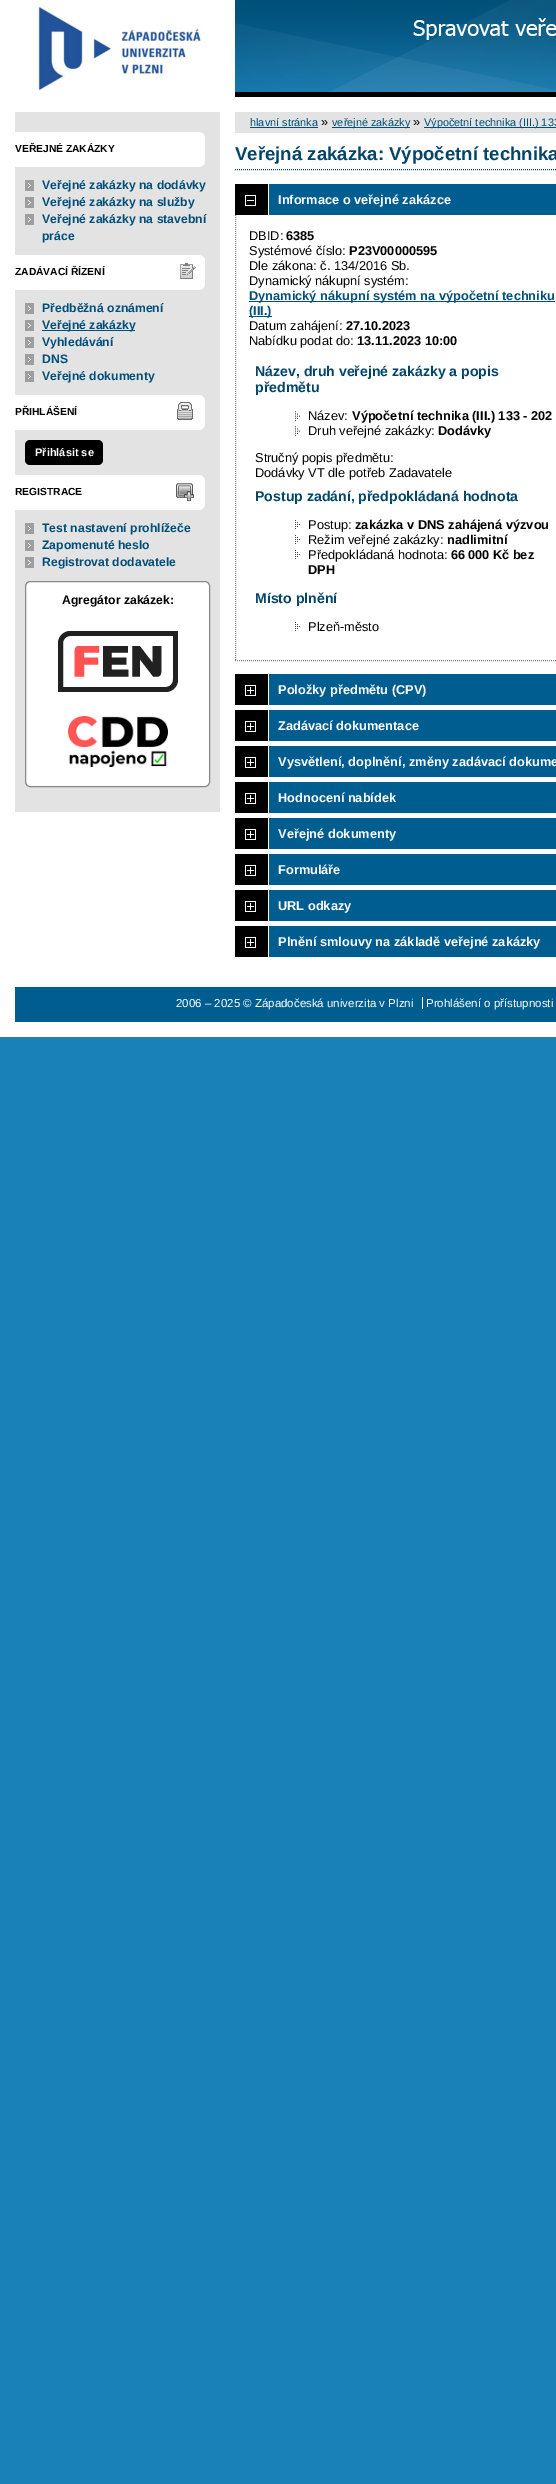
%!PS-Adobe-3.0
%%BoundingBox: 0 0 556 2484
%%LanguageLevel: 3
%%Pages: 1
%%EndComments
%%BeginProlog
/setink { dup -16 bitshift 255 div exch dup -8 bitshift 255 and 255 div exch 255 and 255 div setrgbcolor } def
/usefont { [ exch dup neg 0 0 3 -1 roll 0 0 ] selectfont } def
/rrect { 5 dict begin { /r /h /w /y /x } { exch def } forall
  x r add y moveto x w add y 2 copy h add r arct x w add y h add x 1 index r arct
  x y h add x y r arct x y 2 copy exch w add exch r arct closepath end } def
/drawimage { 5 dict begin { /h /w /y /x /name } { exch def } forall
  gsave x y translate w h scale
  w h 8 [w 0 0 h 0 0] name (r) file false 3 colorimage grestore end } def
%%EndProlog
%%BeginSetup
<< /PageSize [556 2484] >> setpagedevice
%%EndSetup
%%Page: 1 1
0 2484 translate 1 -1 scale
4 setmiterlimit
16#1980B8 setink
0 0 556 2484 rectfill
(img1.raw) 235 0 321 97 drawimage
(img2.raw) 0 0 235 97 drawimage
16#FFFFFF setink
0 97 556 940 rectfill
16#E3E3E3 setink
15 112 205 700 rectfill
(img3.raw) 15 132 190 35 drawimage
/LiberationSans-Bold 10.25 usefont
16#000000 setink
15 152 moveto (VEŘEJNÉ ZAKÁZKY) show
(img4.raw) 25 180 9 11 drawimage
/LiberationSans-Bold 12.2 usefont
16#004F7A setink
42 189 moveto (Veřejné zakázky na dodávky) show
(img4.raw) 25 197 9 11 drawimage
42 206 moveto (Veřejné zakázky na služby) show
(img4.raw) 25 214 9 11 drawimage
42 223 moveto (Veřejné zakázky na stavební) show
42 240 moveto (práce) show
(img5.raw) 15 255 190 35 drawimage
/LiberationSans-Bold 10.25 usefont
16#000000 setink
15 275 moveto (ZADÁVACÍ ŘÍZENÍ) show
(img4.raw) 25 303 9 11 drawimage
/LiberationSans-Bold 12.2 usefont
16#004F7A setink
42 312 moveto (Předběžná oznámení) show
(img4.raw) 25 320 9 11 drawimage
42 330 93 1 rectfill
42 329 moveto (Veřejné zakázky) show
(img4.raw) 25 337 9 11 drawimage
42 346 moveto (Vyhledávání) show
(img4.raw) 25 354 9 11 drawimage
42 363 moveto (DNS) show
(img4.raw) 25 371 9 11 drawimage
42 380 moveto (Veřejné dokumenty) show
(img6.raw) 15 395 190 35 drawimage
/LiberationSans-Bold 10.25 usefont
16#000000 setink
15 415 moveto (PŘIHLÁŠENÍ) show
25 440 78 25 5 rrect fill
/LiberationSans-Bold 11 usefont
16#FFFFFF setink
35 456 moveto (Přihlásit se) show
(img7.raw) 15 475 190 35 drawimage
/LiberationSans-Bold 10.25 usefont
16#000000 setink
15 495 moveto (REGISTRACE) show
(img4.raw) 25 523 9 11 drawimage
/LiberationSans-Bold 12.2 usefont
16#004F7A setink
42 532 moveto (Test nastavení prohlížeče) show
(img4.raw) 25 540 9 11 drawimage
42 549 moveto (Zapomenuté heslo) show
(img4.raw) 25 557 9 11 drawimage
42 566 moveto (Registrovat dodavatele) show
16#FFFFFF setink
25.5 581.5 184 205 4.5 rrect gsave fill grestore
16#888888 setink
stroke
16#000000 setink
62 604 moveto (Agregátor zakázek:) show
(img8.raw) 58 631 120 61 drawimage
(img9.raw) 68 716 100 51 drawimage
16#E3E3E3 setink
235 112 321 21 rectfill
/LiberationSans-Regular 10.9 usefont
16#004F7A setink
250 126 moveto (hlavní stránka) show
250 127 68 1 rectfill
/LiberationSans-Regular 12.8 usefont
16#000000 setink
321 126 moveto (») show
16#004F7A setink
332 127 78 1 rectfill
/LiberationSans-Regular 10.9 usefont
332 126 moveto (veřejné zakázky) show
/LiberationSans-Regular 12.8 usefont
16#000000 setink
413 126 moveto (») show
16#004F7A setink
424 127 132 1 rectfill
/LiberationSans-Regular 10.9 usefont
424 126 moveto (Výpočetní technika \(III.\) 133) show
16#024569 setink
[1 1] 0 setdash
235 169.5 moveto 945 169.5 lineto stroke
/LiberationSans-Bold 18.6 usefont
235 160 moveto (Veřejná zakázka: Výpočetní technika) show
(img10.raw) 235 184 321 31 drawimage
(img11.raw) 245 195 11 11 drawimage
/LiberationSans-Bold 12.8 usefont
16#FFFFFF setink
278 204 moveto (Informace o veřejné zakázce) show
16#7F7F7F setink
235 660.5 moveto 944 660.5 lineto stroke
235.5 215 moveto 235.5 661 lineto stroke
/LiberationSans-Regular 12.8 usefont
16#000000 setink
249 240 moveto (DBID:) show
/LiberationSans-Bold 12.8 usefont
286 240 moveto (6385) show
/LiberationSans-Regular 12.8 usefont
249 255 moveto (Systémové číslo:) show
/LiberationSans-Bold 12.8 usefont
349 255 moveto (P23V00000595) show
/LiberationSans-Regular 12.8 usefont
249 270 moveto (Dle zákona: č. 134/2016 Sb.) show
249 285 moveto (Dynamický nákupní systém:) show
16#004F7A setink
249 301 306 1 rectfill
/LiberationSans-Bold 12.8 usefont
249 300 moveto (Dynamický nákupní systém na výpočetní techniku) show
249 316 23 1 rectfill
249 315 moveto (\(III.\)) show
/LiberationSans-Regular 12.8 usefont
16#000000 setink
249 330 moveto (Datum zahájení:) show
/LiberationSans-Bold 12.8 usefont
346 330 moveto (27.10.2023) show
/LiberationSans-Regular 12.8 usefont
249 345 moveto (Nabídku podat do:) show
/LiberationSans-Bold 12.8 usefont
357 345 moveto (13.11.2023 10:00) show
/LiberationSans-Bold 14.1 usefont
16#024569 setink
255 376 moveto (Název, druh veřejné zakázky a popis) show
255 392 moveto (předmětu) show
(img12.raw) 295 411 5 10 drawimage
/LiberationSans-Regular 12.8 usefont
16#000000 setink
308 420 moveto (Název:) show
/LiberationSans-Bold 12.8 usefont
352 420 moveto (Výpočetní technika \(III.\) 133 - 202) show
(img12.raw) 295 426 5 10 drawimage
/LiberationSans-Regular 12.8 usefont
308 435 moveto (Druh veřejné zakázky:) show
/LiberationSans-Bold 12.8 usefont
438 435 moveto (Dodávky) show
/LiberationSans-Regular 12.8 usefont
255 462 moveto (Stručný popis předmětu:) show
255 477 moveto (Dodávky VT dle potřeb Zadavatele) show
/LiberationSans-Bold 14.1 usefont
16#024569 setink
255 501 moveto (Postup zadání, předpokládaná hodnota) show
(img13.raw) 295 520 5 9 drawimage
/LiberationSans-Regular 12.8 usefont
16#000000 setink
308 529 moveto (Postup:) show
/LiberationSans-Bold 12.8 usefont
355 529 moveto (zakázka v DNS zahájená výzvou) show
(img13.raw) 295 535 5 9 drawimage
/LiberationSans-Regular 12.8 usefont
308 544 moveto (Režim veřejné zakázky:) show
/LiberationSans-Bold 12.8 usefont
447 544 moveto (nadlimitní) show
(img13.raw) 295 550 5 9 drawimage
/LiberationSans-Regular 12.8 usefont
308 559 moveto (Předpokládaná hodnota:) show
/LiberationSans-Bold 12.8 usefont
451 559 moveto (66 000 Kč bez) show
308 574 moveto (DPH) show
/LiberationSans-Bold 14.1 usefont
16#024569 setink
255 603 moveto (Místo plnění) show
(img13.raw) 295 622 5 9 drawimage
/LiberationSans-Regular 12.8 usefont
16#000000 setink
308 631 moveto (Plzeň-město) show
(img10.raw) 235 674 321 31 drawimage
(img14.raw) 245 685 11 11 drawimage
/LiberationSans-Bold 12.8 usefont
16#FFFFFF setink
278 694 moveto (Položky předmětu \(CPV\)) show
(img10.raw) 235 710 321 31 drawimage
(img14.raw) 245 721 11 11 drawimage
278 730 moveto (Zadávací dokumentace) show
(img10.raw) 235 746 321 31 drawimage
(img14.raw) 245 757 11 11 drawimage
278 766 moveto (Vysvětlení, doplnění, změny zadávací dokume) show
(img10.raw) 235 782 321 31 drawimage
(img14.raw) 245 793 11 11 drawimage
278 802 moveto (Hodnocení nabídek) show
(img10.raw) 235 818 321 31 drawimage
(img14.raw) 245 829 11 11 drawimage
278 838 moveto (Veřejné dokumenty) show
(img10.raw) 235 854 321 31 drawimage
(img14.raw) 245 865 11 11 drawimage
278 874 moveto (Formuláře) show
(img10.raw) 235 890 321 31 drawimage
(img14.raw) 245 901 11 11 drawimage
278 910 moveto (URL odkazy) show
(img10.raw) 235 926 321 31 drawimage
(img14.raw) 245 937 11 11 drawimage
278 946 moveto (Plnění smlouvy na základě veřejné zakázky) show
16#005D8F setink
15 987 541 35 rectfill
/LiberationSans-Regular 11.5 usefont
16#FFFFFF setink
176 1007 moveto (2006 – 2025 © Západočeská univerzita v Plzni) show
422 997 1 12 rectfill
426 1007 moveto (Prohlášení o přístupnosti) show
showpage
%%EOF
